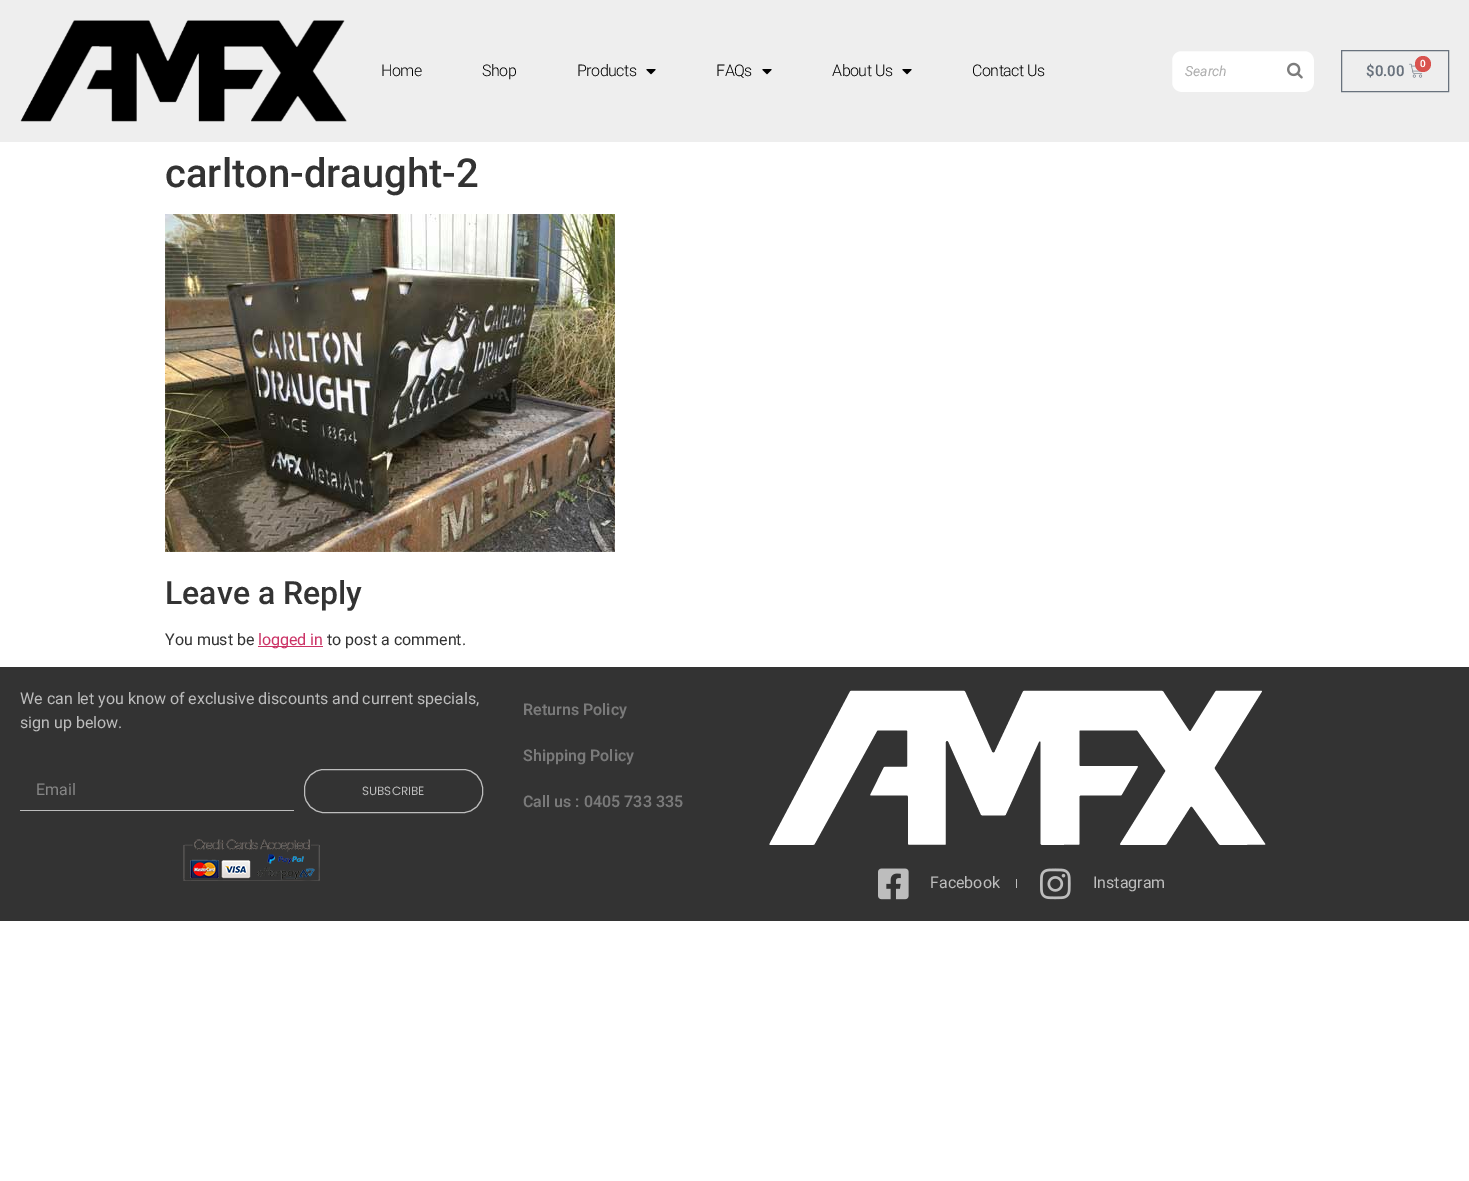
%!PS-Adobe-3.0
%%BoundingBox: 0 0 1469 1181
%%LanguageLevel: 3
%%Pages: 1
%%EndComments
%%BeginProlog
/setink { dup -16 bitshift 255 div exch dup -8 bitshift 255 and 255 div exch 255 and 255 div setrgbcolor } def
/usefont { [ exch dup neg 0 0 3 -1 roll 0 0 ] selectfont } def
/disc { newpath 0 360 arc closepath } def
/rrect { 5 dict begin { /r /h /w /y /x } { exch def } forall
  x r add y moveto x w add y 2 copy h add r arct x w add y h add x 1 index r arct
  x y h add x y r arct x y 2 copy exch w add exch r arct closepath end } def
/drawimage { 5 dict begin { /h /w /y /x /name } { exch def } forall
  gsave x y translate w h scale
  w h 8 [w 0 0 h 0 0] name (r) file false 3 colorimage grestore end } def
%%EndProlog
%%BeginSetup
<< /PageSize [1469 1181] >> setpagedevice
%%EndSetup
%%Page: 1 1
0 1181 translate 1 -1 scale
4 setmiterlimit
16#FFFFFF setink
0 0 1469 1181 rectfill
16#EEEEEE setink
0 0 1469 142 rectfill
(img1.raw) 20 20 327 102 drawimage
/Roboto-Light 16 usefont
16#000000 setink
381 76 moveto -0.5 0 (Home) ashow
482 76 moveto -0.5 0 (Shop) ashow
577 76 moveto -0.5 0 (Products) ashow
(img2.raw) 646 69 10 6 drawimage
716 76 moveto -0.5 0 (FAQs) ashow
(img2.raw) 762 69 10 6 drawimage
832 76 moveto -0.5 0 (About Us) ashow
(img2.raw) 902 69 10 6 drawimage
972 76 moveto -0.5 0 (Contact Us) ashow
16#FFFFFF setink
1171.5 50.5 143 42 9.5 rrect gsave fill grestore
16#EEEEEE setink
stroke
/Roboto-Italic 14 usefont
16#AEAEAE setink
1185 76 moveto (Search) show
(img3.raw) 1287 62 16 17 drawimage
16#69727D setink
1341.5 50.5 107 41 rectstroke
/Roboto-SemiBold 15 usefont
1366 76 moveto ($0.00) show
(img4.raw) 1409 63 14 15 drawimage
16#D9534F setink
1423 64 8 disc fill
/Roboto-SemiBold 10 usefont
16#FFFFFF setink
1420 67 moveto (0) show
/Roboto-Medium 40 usefont
16#333333 setink
165 187 moveto (carlton-draught-2) show
(img5.raw) 165 214 450 338 drawimage
/Roboto-Medium 32 usefont
165 604 moveto (Leave a Reply) show
/Roboto-Regular 16 usefont
165 645 moveto (You must be) show
16#CC3366 setink
258 646 65 1 rectfill
258 645 moveto (logged in) show
16#333333 setink
327 645 moveto (to post a comment.) show
0 667 1469 254 rectfill
16#BDBDBD setink
20 704 moveto (We can let you know of exclusive discounts and current specials,) show
20 728 moveto (sign up below.) show
20 810 274 1 rectfill
16#868686 setink
36 795 moveto (Email) show
16#BDBDBD setink
304.5 769.5 178 43 19.5 rrect stroke
/Poppins-Regular 12 usefont
362 795 moveto (SUBSCRIBE) show
(img6.raw) 183 839 137 42 drawimage
/Roboto-SemiBold 16 usefont
16#7A7A7A setink
[
    [(Returns Policy) 523 715]
    [(Shipping Policy) 523 761]
    [(Call us : 0405 733 335) 523 807]
] { aload pop moveto show } forall
(img7.raw) 769 690 497 155 drawimage
(img8.raw) 878 868 31 32 drawimage
/Roboto-Regular 16 usefont
16#BDBDBD setink
930 888 moveto (Facebook) show
1016 879 1 9 rectfill
(img9.raw) 1040 868 31 32 drawimage
1093 888 moveto (Instagram) show
showpage
%%EOF
